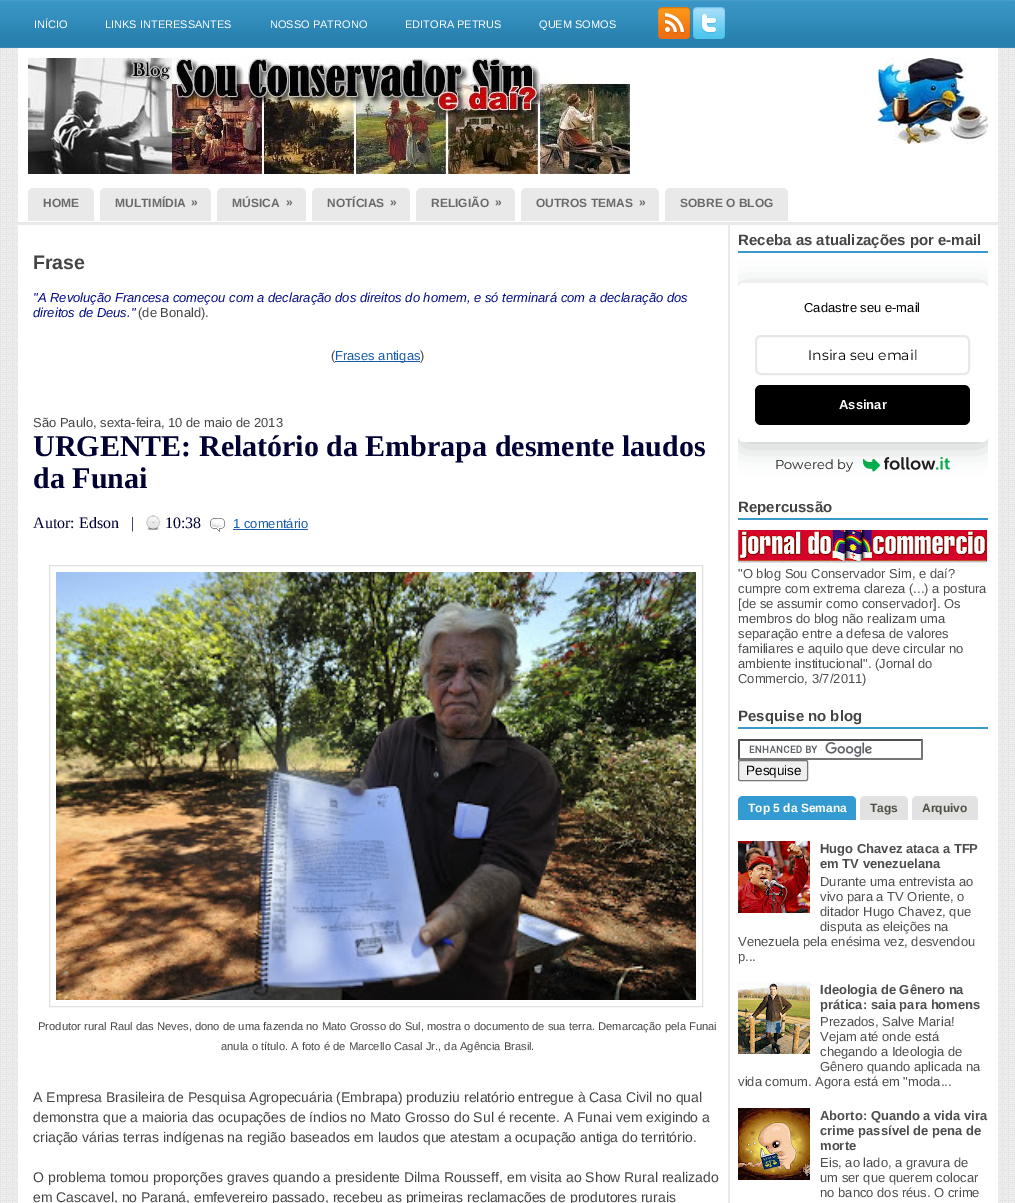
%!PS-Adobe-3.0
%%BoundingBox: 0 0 1015 1203
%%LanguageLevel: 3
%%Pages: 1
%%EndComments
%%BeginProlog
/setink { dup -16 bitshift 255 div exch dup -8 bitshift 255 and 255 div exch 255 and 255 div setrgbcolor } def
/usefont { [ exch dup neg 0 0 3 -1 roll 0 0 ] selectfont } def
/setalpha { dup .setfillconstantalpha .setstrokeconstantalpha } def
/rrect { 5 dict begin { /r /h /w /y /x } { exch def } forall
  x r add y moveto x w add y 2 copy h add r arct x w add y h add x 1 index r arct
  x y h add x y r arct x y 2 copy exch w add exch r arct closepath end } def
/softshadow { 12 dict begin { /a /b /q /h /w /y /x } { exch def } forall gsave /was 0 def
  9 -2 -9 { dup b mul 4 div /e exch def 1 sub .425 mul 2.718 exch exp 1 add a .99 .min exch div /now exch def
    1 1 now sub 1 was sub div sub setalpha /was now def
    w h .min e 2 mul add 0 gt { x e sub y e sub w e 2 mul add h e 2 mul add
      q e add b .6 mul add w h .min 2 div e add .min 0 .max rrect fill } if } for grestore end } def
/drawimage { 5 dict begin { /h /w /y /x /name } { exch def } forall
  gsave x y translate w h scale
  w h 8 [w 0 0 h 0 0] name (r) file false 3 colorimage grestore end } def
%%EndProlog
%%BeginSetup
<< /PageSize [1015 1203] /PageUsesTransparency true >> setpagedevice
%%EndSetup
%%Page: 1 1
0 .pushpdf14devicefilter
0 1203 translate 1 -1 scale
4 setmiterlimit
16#FFFFFF setink
0 0 1015 1203 rectfill
(img1.raw) 0 48 1015 1155 drawimage
(img2.raw) 0 0 1015 48 drawimage
/LiberationSans-Regular 11 usefont
[
    [(INÍCIO) 34 28]
    [(LINKS INTERESSANTES) 105 28]
    [(NOSSO PATRONO) 270 28]
    [(EDITORA PETRUS) 405 28]
    [(QUEM SOMOS) 539 28]
] { aload pop moveto show } forall
(img3.raw) 658 7 32 32 drawimage
(img4.raw) 693 7 32 32 drawimage
18 48 980 174 rectfill
(img5.raw) 28 58 602 116 drawimage
(img6.raw) 878 58 110 86 drawimage
16#E9E9E9 setink
18 222 980 3 rectfill
(img7.raw) 28 188 66 33 drawimage
/LiberationSans-Bold 12 usefont
16#6A6A6A setink
43 207 moveto (HOME) show
(img8.raw) 100 188 111 33 drawimage
115 207 moveto (MULTIMÍDIA) show
191 206 moveto (») show
(img9.raw) 217 188 89 33 drawimage
232 207 moveto (MÚSICA) show
286 206 moveto (») show
(img10.raw) 312 188 98 33 drawimage
327 207 moveto (NOTÍCIAS) show
390 206 moveto (») show
(img11.raw) 416 188 99 33 drawimage
431 207 moveto (RELIGIÃO) show
495 206 moveto (») show
(img12.raw) 521 188 138 33 drawimage
536 207 moveto (OUTROS TEMAS) show
639 206 moveto (») show
(img13.raw) 665 188 123 33 drawimage
680 207 moveto (SOBRE O BLOG) show
16#FFFFFF setink
18 225 980 978 rectfill
16#EAEAEA setink
728 225 2 978 rectfill
/LiberationSans-Bold 19.5 usefont
16#444444 setink
33 269 moveto (Frase) show
/LiberationSans-Italic 13 usefont
16#000888 setink
33 302 moveto ("A Revolução Francesa começou com a declaração dos direitos do homem, e só terminará com a declaração dos) show
33 317 moveto (direitos de Deus.") show
/LiberationSans-Regular 13 usefont
16#444444 setink
138 317 moveto (\(de Bonald\).) show
331 360 moveto (\() show
16#195DAC setink
335 361 85 1 rectfill
335 360 moveto (Frases antigas) show
16#444444 setink
420 360 moveto (\)) show
33 427 moveto (São Paulo, sexta-feira, 10 de maio de 2013) show
/LiberationSerif-Bold 30 usefont
16#000033 setink
33 456 moveto (URGENTE: Relatório da Embrapa desmente laudos) show
33 488 moveto (da Funai) show
/LiberationSerif-Regular 16 usefont
33 528 moveto (Autor: Edson   |) show
(img14.raw) 146 515 15 16 drawimage
165 528 moveto (10:38) show
(img15.raw) 210 518 15 14 drawimage
/LiberationSans-Regular 13 usefont
16#195DAC setink
233 528 moveto (1 comentário) show
233 529 75 1 rectfill
16#E0E0E0 setink
49.5 565.5 653 441 rectstroke
(img16.raw) 56 572 640 428 drawimage
/LiberationSans-Regular 11.2 usefont
16#444444 setink
38 1030 moveto (Produtor rural Raul das Neves, dono de uma fazenda no Mato Grosso do Sul, mostra o documento de sua terra. Demarcação pela Funai) show
221 1050 moveto (anula o título. A foto é de Marcello Casal Jr., da Agência Brasil.) show
/LiberationSans-Regular 14 usefont
[
    [(A Empresa Brasileira de Pesquisa Agropecuária \(Embrapa\) produziu relatório entregue à Casa Civil no qual) 33 1102]
    [(demonstra que a maioria das ocupações de índios no Mato Grosso do Sul é recente. A Funai vem exigindo a) 33 1122]
    [(criação várias terras indígenas na região baseados em laudos que atestam a ocupação antiga do território.) 33 1142]
    [(O problema tomou proporções graves quando a presidente Dilma Rousseff, em visita ao Show Rural realizado) 33 1182]
    [(em Cascavel, no Paraná, emfevereiro passado, recebeu as primeiras reclamações de produtores rurais) 33 1202]
] { aload pop moveto show } forall
16#3B99CA setink
738 251 250 2 rectfill
/LiberationSans-Bold 15 usefont
16#444444 setink
738 245 moveto (Receba as atualizações por e-mail) show
(img17.raw) 863 457 87 15 drawimage
gsave
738 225 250 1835 rectclip
16#223C2F setink
738 288 250 159 6 12.5 0.25 softshadow
grestore
16#FFFFFF setink
738 283 250 159 6 rrect fill
/LiberationSans-Regular 13 usefont
16#000000 setink
804 312 moveto (Cadastre seu e-mail) show
16#E9E8E8 setink
2 setlinewidth
756 336 213 38 5 rrect stroke
/Montserrat-Regular 14 usefont
16#000000 setink
808 360 moveto (Insira seu email) show
755 385 215 40 6 rrect fill
/LiberationSans-Bold 13 usefont
16#FFFFFF setink
839 409 moveto (Assinar) show
/Montserrat-Regular 13 usefont
16#231F20 setink
775 469 moveto (Powered by) show
16#3B99CA setink
738 518 250 2 rectfill
/LiberationSans-Bold 15 usefont
16#444444 setink
738 512 moveto (Repercussão) show
(img18.raw) 738 530 250 33 drawimage
/LiberationSans-Regular 13 usefont
16#4E4D4D setink
[
    [("O blog Sou Conservador Sim, e daí?) 738 578]
    [(cumpre com extrema clareza \(...\) a postura) 738 593]
    [([de se assumir como conservador]. Os) 738 608]
    [(membros do blog não realizam uma) 738 623]
    [(separação entre a defesa de valores) 738 638]
    [(familiares e aquilo que deve circular no) 738 653]
    [(ambiente institucional". \(Jornal do) 738 668]
    [(Commercio, 3/7/2011\)) 738 683]
] { aload pop moveto show } forall
16#3B99CA setink
738 727 250 2 rectfill
/LiberationSans-Bold 15 usefont
16#444444 setink
738 721 moveto (Pesquise no blog) show
(img19.raw) 749 742 123 15 drawimage
16#4F4F4F setink
738 739 moveto 923 739 lineto 921 741 lineto 740 741 lineto closepath fill
16#767676 setink
923 739 moveto 923 760 lineto 921 758 lineto 921 741 lineto closepath fill
923 760 moveto 738 760 lineto 740 758 lineto 921 758 lineto closepath fill
16#4F4F4F setink
738 760 moveto 738 739 lineto 740 741 lineto 740 758 lineto closepath fill
16#EFEFEF setink
738.5 760.5 69 20 1.5 rrect gsave fill grestore
16#767676 setink
1 setlinewidth
stroke
/LiberationSans-Regular 13.5 usefont
16#000000 setink
746 775 moveto (Pesquise) show
16#339BD1 setink
743 796 moveto 851 796 lineto 854 796 856 798 856 801 curveto 856 820 lineto 738 820 lineto 738 801 lineto 738 798 740 796 743 796 curveto closepath fill
/LiberationSans-Bold 12 usefont
16#FFFFFF setink
748 812 moveto (Top 5 da Semana) show
16#E2E2E2 setink
865 796 moveto 903 796 lineto 906 796 908 798 908 801 curveto 908 820 lineto 860 820 lineto 860 801 lineto 860 798 862 796 865 796 curveto closepath fill
16#4F4E42 setink
870 812 moveto (Tags) show
16#E2E2E2 setink
917 796 moveto 973 796 lineto 976 796 978 798 978 801 curveto 978 820 lineto 912 820 lineto 912 801 lineto 912 798 914 796 917 796 curveto closepath fill
16#4F4E42 setink
922 812 moveto (Arquivo) show
(img20.raw) 738 841 72 72 drawimage
/LiberationSans-Bold 13 usefont
16#4E4D4D setink
820 853 moveto (Hugo Chavez ataca a TFP) show
820 868 moveto (em TV venezuelana) show
/LiberationSans-Regular 13 usefont
[
    [(Durante uma entrevista ao) 820 886]
    [(vivo para a TV Oriente, o) 820 901]
    [(ditador Hugo Chavez, que) 820 916]
    [(disputa as eleições na) 820 931]
    [(Venezuela pela enésima vez, desvendou) 738 946]
    [(p...) 738 961]
] { aload pop moveto show } forall
(img21.raw) 738 982 72 72 drawimage
/LiberationSans-Bold 13 usefont
820 994 moveto (Ideologia de Gênero na) show
820 1009 moveto (prática: saia para homens) show
/LiberationSans-Regular 13 usefont
[
    [(Prezados, Salve Maria!) 820 1026]
    [(Vejam até onde está) 820 1041]
    [(chegando a Ideologia de) 820 1056]
    [(Gênero quando aplicada na) 820 1071]
    [(vida comum. Agora está em "moda...) 738 1086]
] { aload pop moveto show } forall
(img22.raw) 738 1108 72 72 drawimage
/LiberationSans-Bold 13 usefont
[
    [(Aborto: Quando a vida vira) 820 1120]
    [(crime passível de pena de) 820 1135]
    [(morte) 820 1150]
] { aload pop moveto show } forall
/LiberationSans-Regular 13 usefont
[
    [(Eis, ao lado, a gravura de) 820 1167]
    [(um ser que querem colocar) 820 1182]
    [(no banco dos réus. O crime) 820 1197]
] { aload pop moveto show } forall
.poppdf14devicefilter showpage
%%EOF
